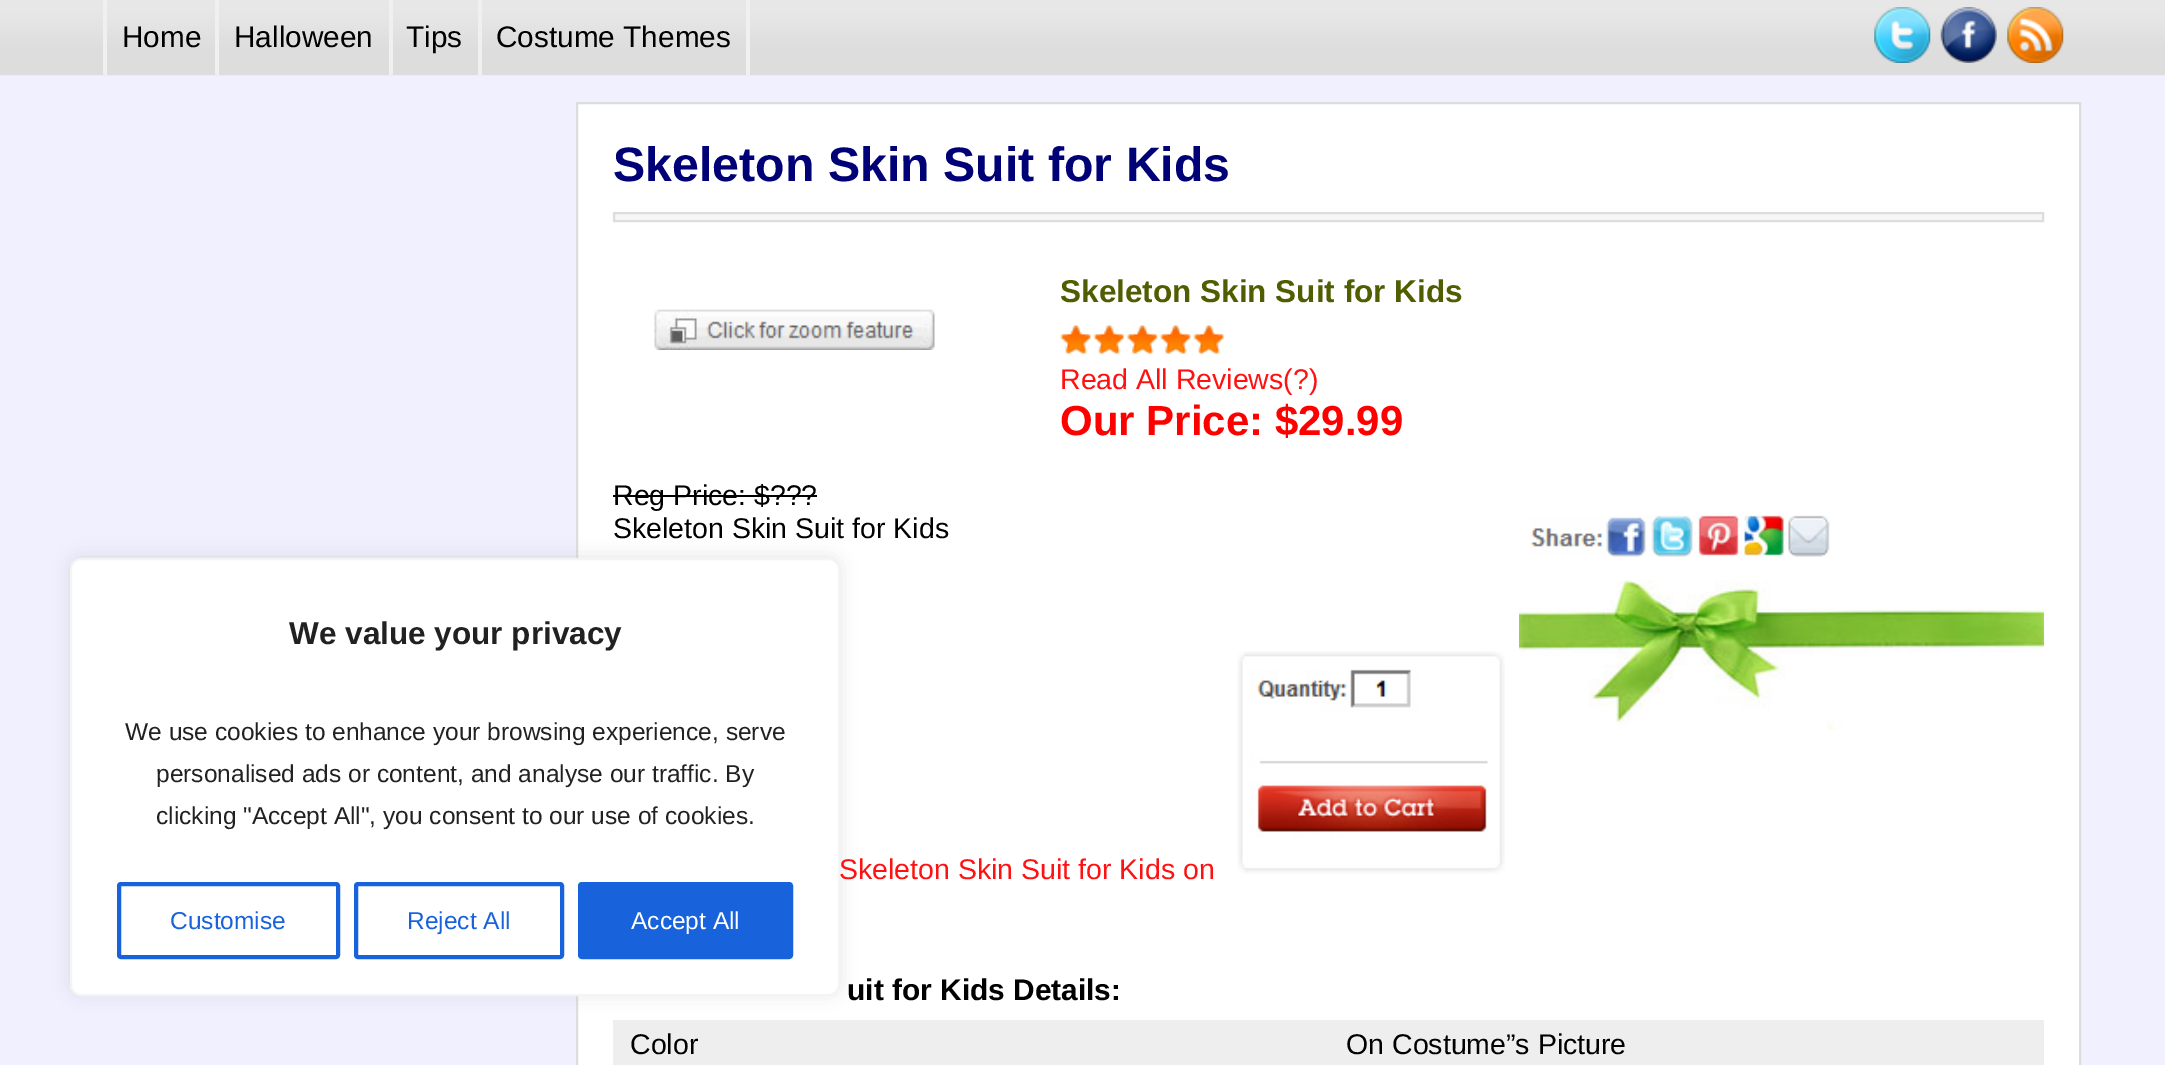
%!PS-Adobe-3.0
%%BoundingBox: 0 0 2165 1065
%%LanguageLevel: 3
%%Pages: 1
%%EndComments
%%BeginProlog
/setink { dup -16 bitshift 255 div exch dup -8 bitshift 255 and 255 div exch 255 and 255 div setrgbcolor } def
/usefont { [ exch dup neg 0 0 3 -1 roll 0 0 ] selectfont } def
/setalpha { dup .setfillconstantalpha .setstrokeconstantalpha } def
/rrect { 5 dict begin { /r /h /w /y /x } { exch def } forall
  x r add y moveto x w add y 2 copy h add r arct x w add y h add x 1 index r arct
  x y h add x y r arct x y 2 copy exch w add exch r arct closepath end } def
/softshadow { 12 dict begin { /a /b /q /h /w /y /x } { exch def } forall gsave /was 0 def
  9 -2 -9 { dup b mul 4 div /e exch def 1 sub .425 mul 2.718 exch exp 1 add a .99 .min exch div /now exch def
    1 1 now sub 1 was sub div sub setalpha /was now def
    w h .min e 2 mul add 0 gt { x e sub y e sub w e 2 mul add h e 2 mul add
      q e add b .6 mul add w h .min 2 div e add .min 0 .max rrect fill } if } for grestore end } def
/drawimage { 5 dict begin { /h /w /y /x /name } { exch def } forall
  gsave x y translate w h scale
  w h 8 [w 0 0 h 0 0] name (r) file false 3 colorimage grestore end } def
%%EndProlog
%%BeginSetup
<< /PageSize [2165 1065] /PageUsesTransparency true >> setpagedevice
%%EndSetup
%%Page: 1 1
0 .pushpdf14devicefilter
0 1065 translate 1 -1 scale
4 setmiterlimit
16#F0F0FF setink
0 0 2165 1065 rectfill
(img1.raw) 0 0 2165 76 drawimage
16#F0F0F0 setink
103 0 4 75 rectfill
215 0 4 75 rectfill
/LiberationSans-Regular 29.75 usefont
16#000000 setink
122 47 moveto (Home) show
16#F0F0F0 setink
389 0 4 75 rectfill
16#000000 setink
234 47 moveto (Halloween) show
16#F0F0F0 setink
478 0 4 75 rectfill
16#000000 setink
406 47 moveto (Tips) show
16#F0F0F0 setink
746 0 4 75 rectfill
16#000000 setink
496 47 moveto (Costume Themes) show
(img2.raw) 1874 7 57 56 drawimage
(img3.raw) 1940 7 57 56 drawimage
(img4.raw) 2007 7 57 56 drawimage
16#FFFFFF setink
577 103 moveto 2080 103 lineto 2080 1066 lineto 577 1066 lineto closepath gsave fill grestore
16#DDDDDD setink
2 setlinewidth
stroke
16#EEEEEE setink
613 1020 1431 45 rectfill
16#ACABAB setink
70 557 770 437 11 9 0.3 softshadow
16#FFFFFF setink
71 559 768 436 10 rrect gsave fill grestore
16#F4F4F4 setink
stroke
/LiberationSans-Bold 31.5 usefont
16#212121 setink
289 644 moveto (We value your privacy) show
/LiberationSans-Regular 24.5 usefont
[
    [(We use cookies to enhance your browsing experience, serve) 125 740]
    [(personalised ads or content, and analyse our traffic. By) 156 782]
    [(clicking "Accept All", you consent to our use of cookies.) 156 824]
] { aload pop moveto show } forall
16#1863DC setink
4 setlinewidth
119 884 219 73 2 rrect stroke
170 929 moveto (Customise) show
356 884 206 73 2 rrect stroke
407 929 moveto (Reject All) show
580 884 211 73 2 rrect gsave fill grestore
stroke
16#FFFFFF setink
631 929 moveto (Accept All) show
/LiberationSans-Bold 48.3 usefont
16#000077 setink
613 181 moveto (Skeleton Skin Suit for Kids) show
16#F6F6F6 setink
614 213 moveto 2043 213 lineto 2043 221 lineto 614 221 lineto closepath gsave fill grestore
16#DDDDDD setink
2 setlinewidth
stroke
16#FBFBFB setink
612 212 1 10 rectfill
/LiberationSans-Bold 31.5 usefont
16#505D00 setink
1060 302 moveto (Skeleton Skin Suit for Kids) show
(img5.raw) 654 309 281 41 drawimage
(img6.raw) 1060 325 164 29 drawimage
/LiberationSans-Regular 28.5 usefont
16#FF1111 setink
1060 389 moveto (Read All Reviews\(?\)) show
/LiberationSans-Bold 42 usefont
16#FF0000 setink
1060 435 moveto (Our Price: $29.99) show
/LiberationSans-Regular 28.5 usefont
16#000000 setink
613 505 moveto (Reg Price: $???) show
613 495 204 2 rectfill
613 538 moveto (Skeleton Skin Suit for Kids) show
(img7.raw) 1530 515 300 42 drawimage
(img8.raw) 1519 580 525 150 drawimage
16#FF1111 setink
839 879 moveto (Skeleton Skin Suit for Kids on) show
(img9.raw) 1237 651 268 223 drawimage
/LiberationSans-Bold 29.9 usefont
16#000000 setink
847 1000 moveto (uit for Kids Details:) show
/LiberationSans-Regular 28.5 usefont
630 1054 moveto (Color) show
1346 1054 moveto (On Costume”s Picture) show
.poppdf14devicefilter showpage
%%EOF
